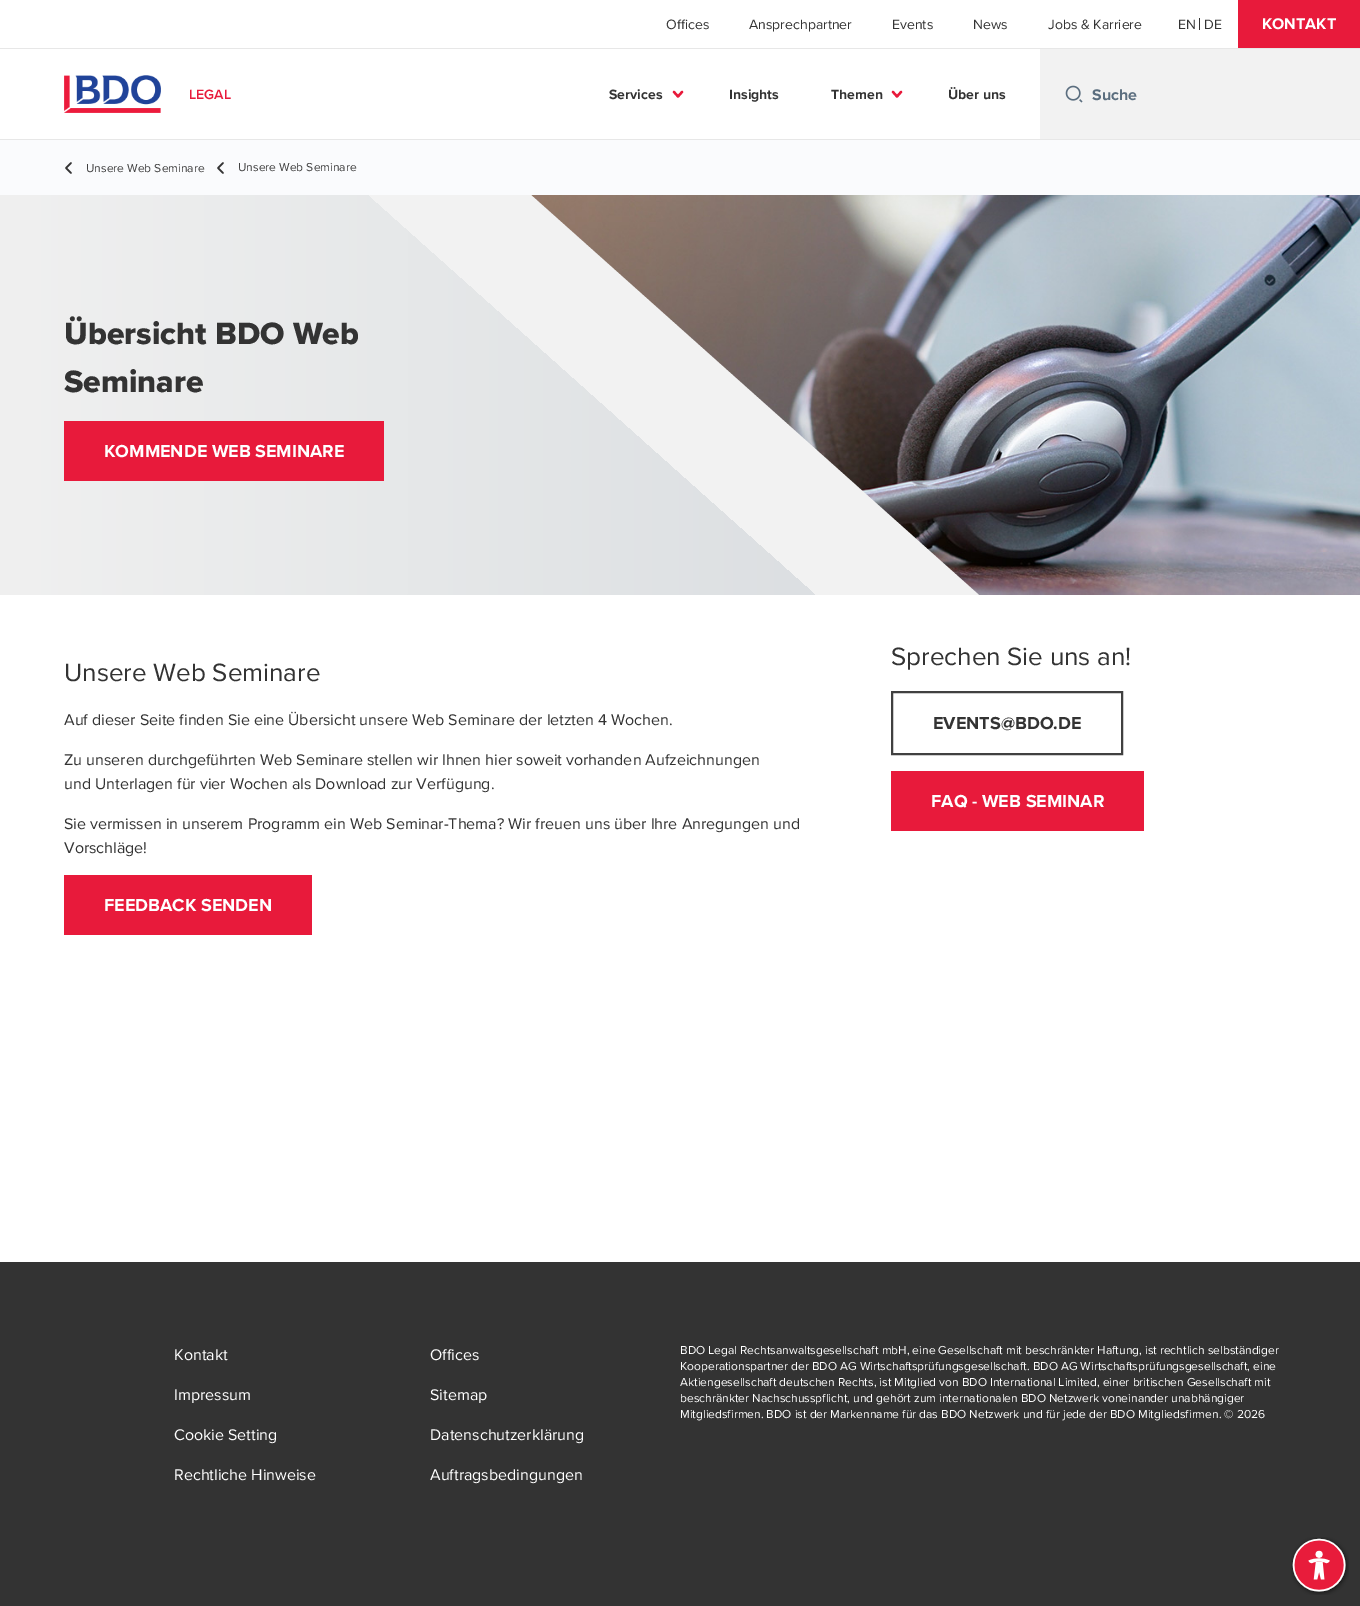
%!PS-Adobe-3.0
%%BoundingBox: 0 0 1360 1606
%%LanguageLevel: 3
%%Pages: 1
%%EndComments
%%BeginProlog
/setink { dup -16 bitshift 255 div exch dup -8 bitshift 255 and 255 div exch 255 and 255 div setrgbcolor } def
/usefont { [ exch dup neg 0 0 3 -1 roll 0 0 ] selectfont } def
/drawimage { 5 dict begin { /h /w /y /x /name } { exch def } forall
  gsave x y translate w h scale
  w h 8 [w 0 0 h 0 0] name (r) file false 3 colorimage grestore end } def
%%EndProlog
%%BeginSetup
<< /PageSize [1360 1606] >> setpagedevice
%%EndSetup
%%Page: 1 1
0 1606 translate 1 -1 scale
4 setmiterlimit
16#FFFFFF setink
0 0 1360 1606 rectfill
16#E7E7E7 setink
0 48 1360 1 rectfill
/ProximaNova-Regular 14 usefont
16#333333 setink
[
    [(Offices) 666 29]
    [(Ansprechpartner) 749 29]
    [(Events) 892 29]
    [(News) 973 29]
    [(Jobs & Karriere) 1048 29]
] { aload pop moveto show } forall
1199 18 1 12 rectfill
1178 29 moveto (EN) show
1204 29 moveto (DE) show
gsave 1238 0 moveto 1360 0 lineto 1360 48 lineto 1238 48 lineto closepath clip newpath
<< /ShadingType 2 /ColorSpace /DeviceRGB /Coords [1123 -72 1280 115] /Extend [true true] /Function << /FunctionType 3 /Domain [0 1] /Functions [<< /FunctionType 2 /Domain [0 1] /C0 [0.357 0.431 0.498] /C1 [0.357 0.431 0.498] /N 1 >> << /FunctionType 2 /Domain [0 1] /C0 [0.91 0.102 0.231] /C1 [0.91 0.102 0.231] /N 1 >>] /Bounds [0.5] /Encode [0 1 0 1] >> >> shfill grestore
/ProximaNova-Bold 16 usefont
16#FFFFFF setink
1262 29 moveto (KONTAKT) show
16#E7E7E7 setink
0 139 1360 1 rectfill
(img1.raw) 64 75 97 38 drawimage
/ProximaNova-SemiBold 14 usefont
16#E81A3B setink
189 99 moveto (LEGAL) show
/ProximaNova-Bold 14 usefont
16#333333 setink
609 99 moveto (Services) show
16#E81A3B setink
2.3 setlinewidth
1 setlinecap
1 setlinejoin
682 92 moveto 678 96.5 lineto 674 92 lineto stroke
16#333333 setink
729 99 moveto (Insights) show
831 99 moveto (Themen) show
16#E81A3B setink
901 92 moveto 897 96.5 lineto 893 92 lineto stroke
16#333333 setink
948 99 moveto (Über uns) show
16#F2F2F2 setink
1040 49 320 90 rectfill
(img2.raw) 1065 85 18 18 drawimage
/ProximaNova-Bold 16 usefont
16#5B6E7F setink
1092 100 moveto (Suche) show
16#FAFBFD setink
0 140 1360 55 rectfill
16#333333 setink
1.5 setlinewidth
71 173 moveto 66 168 lineto 71 163 lineto stroke
/ProximaNova-Regular 12 usefont
16#404040 setink
86 172 moveto (Unsere Web Seminare) show
16#333333 setink
223 173 moveto 218 168 lineto 223 163 lineto stroke
16#404040 setink
238 171 moveto (Unsere Web Seminare) show
(img3.raw) 531 195 829 400 drawimage
16#F2F2F2 setink
979 595 moveto 531 195 lineto -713 195 lineto -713 595 lineto closepath fill
gsave 815 595 moveto 367 195 lineto -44 195 lineto -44 595 lineto closepath clip newpath
<< /ShadingType 2 /ColorSpace /DeviceRGB /Coords [-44 395 815 395] /Extend [true true] /Function << /FunctionType 2 /Domain [0 1] /C0 [0.945 0.945 0.945] /C1 [0.863 0.875 0.886] /N 1 >> >> shfill grestore
/ProximaNova-ExtraBold 32 usefont
16#333333 setink
64 344 moveto (Übersicht BDO Web) show
64 392 moveto (Seminare) show
gsave 64 421 moveto 384 421 lineto 384 481 lineto 64 481 lineto closepath clip newpath
<< /ShadingType 2 /ColorSpace /DeviceRGB /Coords [-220 224 156 672] /Extend [true true] /Function << /FunctionType 3 /Domain [0 1] /Functions [<< /FunctionType 2 /Domain [0 1] /C0 [0.357 0.431 0.498] /C1 [0.357 0.431 0.498] /N 1 >> << /FunctionType 2 /Domain [0 1] /C0 [0.91 0.102 0.231] /C1 [0.91 0.102 0.231] /N 1 >>] /Bounds [0.5] /Encode [0 1 0 1] >> >> shfill grestore
/ProximaNova-Bold 18 usefont
16#FFFFFF setink
104 457 moveto (KOMMENDE WEB SEMINARE) show
/ProximaNova-Regular 26 usefont
16#333333 setink
64 681 moveto (Unsere Web Seminare) show
/ProximaNova-Regular 16 usefont
[
    [(Auf dieser Seite finden Sie eine Übersicht unsere Web Seminare der letzten 4 Wochen.) 64 725]
    [(Zu unseren durchgeführten Web Seminare stellen wir Ihnen hier soweit vorhanden Aufzeichnungen) 64 765]
    [(und Unterlagen für vier Wochen als Download zur Verfügung.) 64 789]
    [(Sie vermissen in unserem Programm ein Web Seminar-Thema? Wir freuen uns über Ihre Anregungen und) 64 829]
    [(Vorschläge!) 64 853]
] { aload pop moveto show } forall
gsave 64 875 moveto 312 875 lineto 312 935 lineto 64 935 lineto closepath clip newpath
<< /ShadingType 2 /ColorSpace /DeviceRGB /Coords [-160 724 139 1080] /Extend [true true] /Function << /FunctionType 3 /Domain [0 1] /Functions [<< /FunctionType 2 /Domain [0 1] /C0 [0.357 0.431 0.498] /C1 [0.357 0.431 0.498] /N 1 >> << /FunctionType 2 /Domain [0 1] /C0 [0.91 0.102 0.231] /C1 [0.91 0.102 0.231] /N 1 >>] /Bounds [0.5] /Encode [0 1 0 1] >> >> shfill grestore
/ProximaNova-Bold 18 usefont
16#FFFFFF setink
104 911 moveto (FEEDBACK SENDEN) show
/ProximaNova-Regular 26 usefont
16#333333 setink
891 665 moveto (Sprechen Sie uns an!) show
16#404040 setink
2 setlinewidth
0 setlinecap
0 setlinejoin
892 692 230 62 rectstroke
/ProximaNova-Bold 18 usefont
16#333333 setink
933 729 moveto (EVENTS@BDO.DE) show
gsave 891 771 moveto 1144 771 lineto 1144 831 lineto 891 831 lineto closepath clip newpath
<< /ShadingType 2 /ColorSpace /DeviceRGB /Coords [663 617 967 979] /Extend [true true] /Function << /FunctionType 3 /Domain [0 1] /Functions [<< /FunctionType 2 /Domain [0 1] /C0 [0.357 0.431 0.498] /C1 [0.357 0.431 0.498] /N 1 >> << /FunctionType 2 /Domain [0 1] /C0 [0.91 0.102 0.231] /C1 [0.91 0.102 0.231] /N 1 >>] /Bounds [0.5] /Encode [0 1 0 1] >> >> shfill grestore
16#FFFFFF setink
931 807 moveto (FAQ - WEB SEMINAR) show
16#333333 setink
0 1262 1360 344 rectfill
/ProximaNova-Regular 16 usefont
16#FFFFFF setink
[
    [(Kontakt) 174 1360]
    [(Offices) 430 1360]
    [(Impressum) 174 1400]
    [(Sitemap) 430 1400]
    [(Cookie Setting) 174 1440]
    [(Datenschutzerklärung) 430 1440]
    [(Rechtliche Hinweise) 174 1480]
    [(Auftragsbedingungen) 430 1480]
] { aload pop moveto show } forall
/ProximaNova-Regular 12 usefont
[
    [(BDO Legal Rechtsanwaltsgesellschaft mbH, eine Gesellschaft mit beschränkter Haftung, ist rechtlich selbständiger) 680 1354]
    [(Kooperationspartner der BDO AG Wirtschaftsprüfungsgesellschaft. BDO AG Wirtschaftsprüfungsgesellschaft, eine) 680 1370]
    [(Aktiengesellschaft deutschen Rechts, ist Mitglied von BDO International Limited, einer britischen Gesellschaft mit) 680 1386]
    [(beschränkter Nachschusspflicht, und gehört zum internationalen BDO Netzwerk voneinander unabhängiger) 680 1402]
    [(Mitgliedsfirmen. BDO ist der Markenname für das BDO Netzwerk und für jede der BDO Mitgliedsfirmen. © 2026) 680 1418]
] { aload pop moveto show } forall
(img4.raw) 1291 1537 58 58 drawimage
showpage
%%EOF
